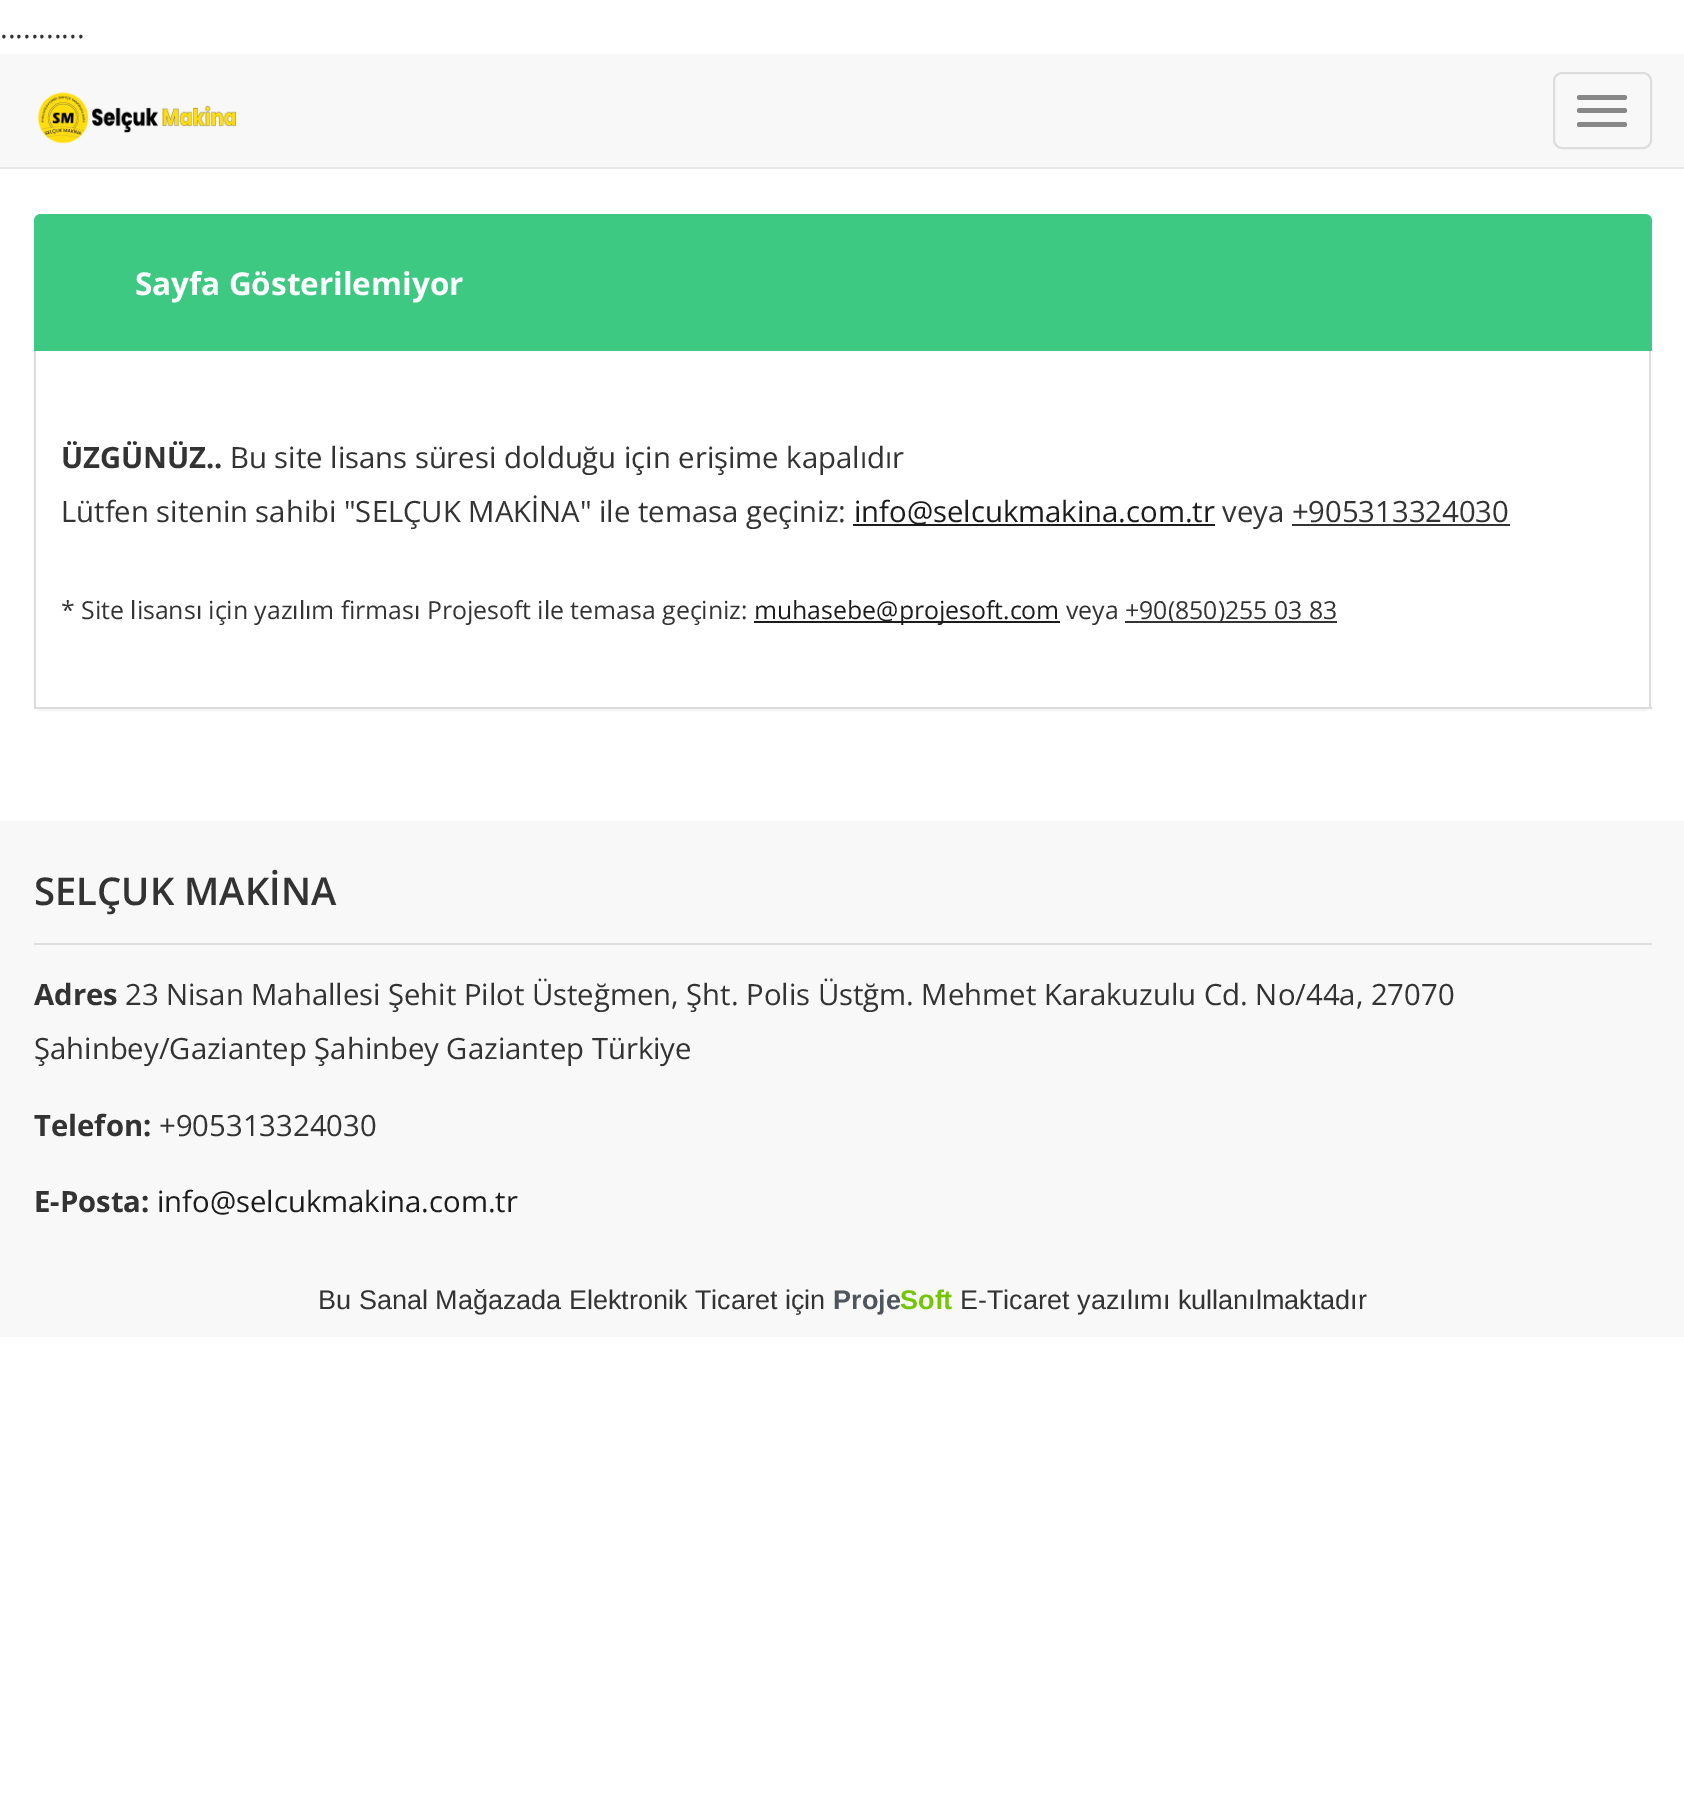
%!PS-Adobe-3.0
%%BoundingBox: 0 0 1684 1817
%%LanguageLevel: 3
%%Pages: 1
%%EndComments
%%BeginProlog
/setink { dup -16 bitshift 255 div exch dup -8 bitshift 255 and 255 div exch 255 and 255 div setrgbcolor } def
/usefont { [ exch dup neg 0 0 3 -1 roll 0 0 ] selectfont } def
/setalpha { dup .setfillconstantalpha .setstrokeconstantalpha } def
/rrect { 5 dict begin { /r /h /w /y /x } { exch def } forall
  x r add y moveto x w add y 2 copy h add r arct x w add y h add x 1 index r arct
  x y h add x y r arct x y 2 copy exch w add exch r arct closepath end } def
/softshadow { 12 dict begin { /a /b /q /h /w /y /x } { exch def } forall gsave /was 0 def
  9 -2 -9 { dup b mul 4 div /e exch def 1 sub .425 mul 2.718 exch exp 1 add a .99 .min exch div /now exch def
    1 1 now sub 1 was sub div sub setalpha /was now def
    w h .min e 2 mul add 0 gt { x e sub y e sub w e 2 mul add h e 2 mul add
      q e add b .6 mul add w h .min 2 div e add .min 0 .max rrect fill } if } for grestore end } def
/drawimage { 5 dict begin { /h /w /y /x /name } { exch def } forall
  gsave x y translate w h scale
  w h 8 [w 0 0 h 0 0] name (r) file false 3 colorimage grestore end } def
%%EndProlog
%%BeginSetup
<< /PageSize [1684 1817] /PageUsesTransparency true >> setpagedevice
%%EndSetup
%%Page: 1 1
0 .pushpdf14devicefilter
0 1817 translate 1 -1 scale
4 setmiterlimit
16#FFFFFF setink
0 0 1684 1817 rectfill
/OpenSans-Regular 29.25 usefont
16#333333 setink
0 38 moveto (...........) show
16#F8F8F8 setink
0 54 1684 113 rectfill
16#E7E7E7 setink
0 167 1684 2 rectfill
(img1.raw) 37 92 199 52 drawimage
16#DDDDDD setink
2 setlinewidth
1554 73 97 75 8 rrect stroke
16#888888 setink
1577 95 50 5 2.5 rrect fill
1577 108 50 5 2.5 rrect fill
1577 122 50 5 2.5 rrect fill
16#000000 setink
34 216 1618 495 9 1 0.05 softshadow
16#FFFFFF setink
34 214 1618 495 9 rrect fill
16#3EC983 setink
41 214 moveto 1645 214 lineto 1649 214 1652 217 1652 221 curveto 1652 351 lineto 34 351 lineto 34 221 lineto 34 217 37 214 41 214 curveto closepath fill
/OpenSans-Bold 31.5 usefont
16#FFFFFF setink
135 295 moveto (Sayfa Gösterilemiyor) show
[
    [1649 351 2 358 16#DCDCDC]
    [34 707 1618 2 16#DCDCDC]
    [34 351 2 358 16#DCDCDC]
] { aload pop setink rectfill } forall
/OpenSans-Bold 29.25 usefont
16#333333 setink
61 468 moveto (ÜZGÜNÜZ..) show
/OpenSans-Regular 29.25 usefont
230 468 moveto (Bu site lisans süresi dolduğu için erişime kapalıdır) show
61 522 moveto (Lütfen sitenin sahibi "SELÇUK MAKİNA" ile temasa geçiniz:) show
16#1C1C1C setink
853 524 362 2 rectfill
854 522 moveto (info@selcukmakina.com.tr) show
16#333333 setink
1222 522 moveto (veya +905313324030) show
1292 524 218 2 rectfill
/OpenSans-Regular 24.85 usefont
61 619 moveto (* Site lisansı için yazılım firması Projesoft ile temasa geçiniz:) show
16#1C1C1C setink
754 621 306 2 rectfill
754 619 moveto (muhasebe@projesoft.com) show
16#333333 setink
1066 619 moveto (veya) show
1125 621 212 2 rectfill
1125 619 moveto (+90\(850\)255 03 83) show
16#F8F8F8 setink
0 821 1684 516 rectfill
16#DEDEDE setink
34 943 1618 2 rectfill
/OpenSans-SemiBold 38.25 usefont
16#333333 setink
34 905 moveto (SELÇUK MAKİNA) show
/OpenSans-Bold 29.25 usefont
34 1005 moveto (Adres) show
/OpenSans-Regular 29.25 usefont
125 1005 moveto (23 Nisan Mahallesi Şehit Pilot Üsteğmen, Şht. Polis Üstğm. Mehmet Karakuzulu Cd. No/44a, 27070) show
34 1059 moveto (Şahinbey/Gaziantep Şahinbey Gaziantep Türkiye) show
/OpenSans-Bold 29.25 usefont
34 1136 moveto (Telefon:) show
/OpenSans-Regular 29.25 usefont
159 1136 moveto (+905313324030) show
/OpenSans-Bold 29.25 usefont
34 1212 moveto (E-Posta:) show
/OpenSans-Regular 29.25 usefont
16#1C1C1C setink
157 1212 moveto (info@selcukmakina.com.tr) show
/LiberationSans-Regular 27 usefont
16#333333 setink
318 1309 moveto (Bu Sanal Mağazada Elektronik Ticaret için) show
/LiberationSans-Bold 27 usefont
16#4E555D setink
833 1309 moveto (Proje) show
16#74C503 setink
900 1309 moveto (Soft) show
/LiberationSans-Regular 27 usefont
16#333333 setink
960 1309 moveto (E-Ticaret yazılımı kullanılmaktadır) show
.poppdf14devicefilter showpage
%%EOF
